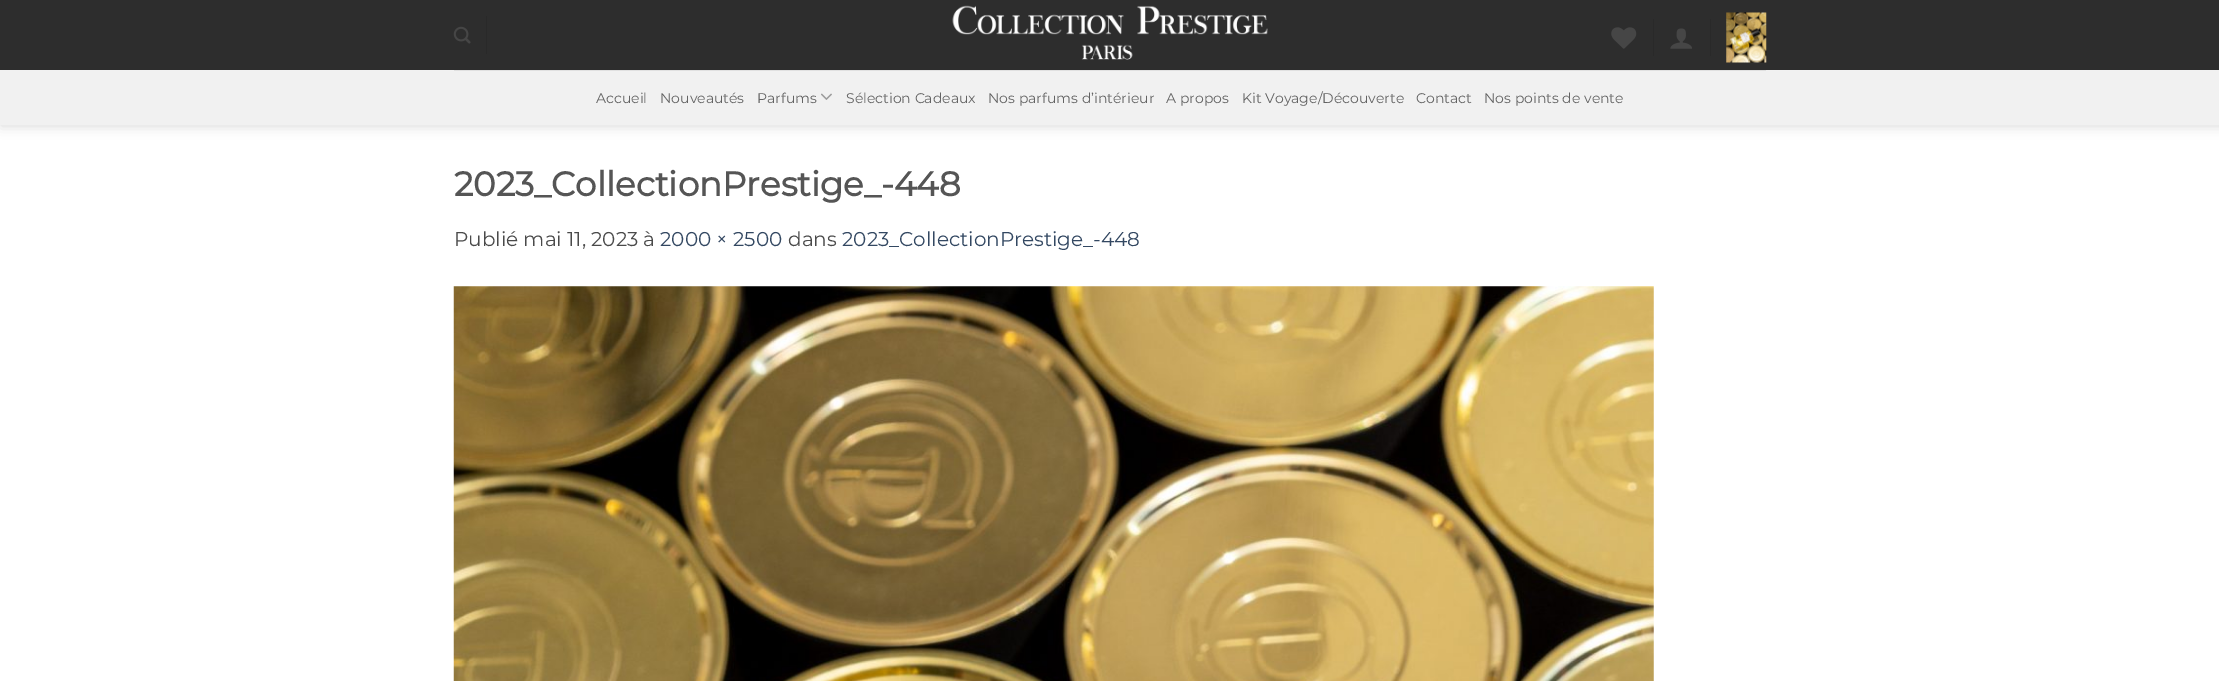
%!PS-Adobe-3.0
%%BoundingBox: 0 0 2219 681
%%LanguageLevel: 3
%%Pages: 1
%%EndComments
%%BeginProlog
/setink { dup -16 bitshift 255 div exch dup -8 bitshift 255 and 255 div exch 255 and 255 div setrgbcolor } def
/usefont { [ exch dup neg 0 0 3 -1 roll 0 0 ] selectfont } def
/setalpha { dup .setfillconstantalpha .setstrokeconstantalpha } def
/rrect { 5 dict begin { /r /h /w /y /x } { exch def } forall
  x r add y moveto x w add y 2 copy h add r arct x w add y h add x 1 index r arct
  x y h add x y r arct x y 2 copy exch w add exch r arct closepath end } def
/softshadow { 12 dict begin { /a /b /q /h /w /y /x } { exch def } forall gsave /was 0 def
  9 -2 -9 { dup b mul 4 div /e exch def 1 sub .425 mul 2.718 exch exp 1 add a .99 .min exch div /now exch def
    1 1 now sub 1 was sub div sub setalpha /was now def
    w h .min e 2 mul add 0 gt { x e sub y e sub w e 2 mul add h e 2 mul add
      q e add b .6 mul add w h .min 2 div e add .min 0 .max rrect fill } if } for grestore end } def
/drawimage { 5 dict begin { /h /w /y /x /name } { exch def } forall
  gsave x y translate w h scale
  w h 8 [w 0 0 h 0 0] name (r) file false 3 colorimage grestore end } def
%%EndProlog
%%BeginSetup
<< /PageSize [2219 681] /PageUsesTransparency true >> setpagedevice
%%EndSetup
%%Page: 1 1
0 .pushpdf14devicefilter
0 681 translate 1 -1 scale
4 setmiterlimit
16#FFFFFF setink
0 0 2219 681 rectfill
16#000000 setink
1 1 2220 125 0 6 0.15 softshadow
16#2D2D2D setink
0 0 2219 70 rectfill
(img1.raw) 453 26 18 18 drawimage
16#292929 setink
486 16 1 38 rectfill
(img2.raw) 952 5 316 55 drawimage
(img3.raw) 1611 27 26 22 drawimage
1653 19 1 37 rectfill
(img4.raw) 1670 28 22 21 drawimage
1710 19 1 37 rectfill
(img5.raw) 1726 12 41 51 drawimage
16#F1F1F1 setink
0 70 2219 55 rectfill
16#E0E0E0 setink
454 70 1312 1 rectfill
/Montserrat-Thin 14 usefont
16#636363 setink
[
    [(Accueil) 596 103]
    [(Nouveautés) 660 103]
    [(Parfums) 757 103]
] { aload pop moveto show } forall
(img6.raw) 821 93 11 7 drawimage
[
    [(Sélection Cadeaux) 846 103]
    [(Nos parfums d’intérieur) 988 103]
    [(A propos) 1166 103]
    [(Kit Voyage/Découverte) 1242 103]
    [(Contact) 1416 103]
    [(Nos points de vente) 1484 103]
] { aload pop moveto show } forall
/Montserrat-Bold 34 usefont
16#555555 setink
454 196 moveto (2023_CollectionPrestige_-448) show
/Montserrat-Thin 20 usefont
16#4A4A4A setink
454 246 moveto (Publié mai 11, 2023 à) show
16#334862 setink
660 246 moveto (2000 × 2500) show
16#4A4A4A setink
788 246 moveto (dans) show
16#334862 setink
842 246 moveto (2023_CollectionPrestige_-448) show
(img7.raw) 453 286 1201 395 drawimage
.poppdf14devicefilter showpage
%%EOF
